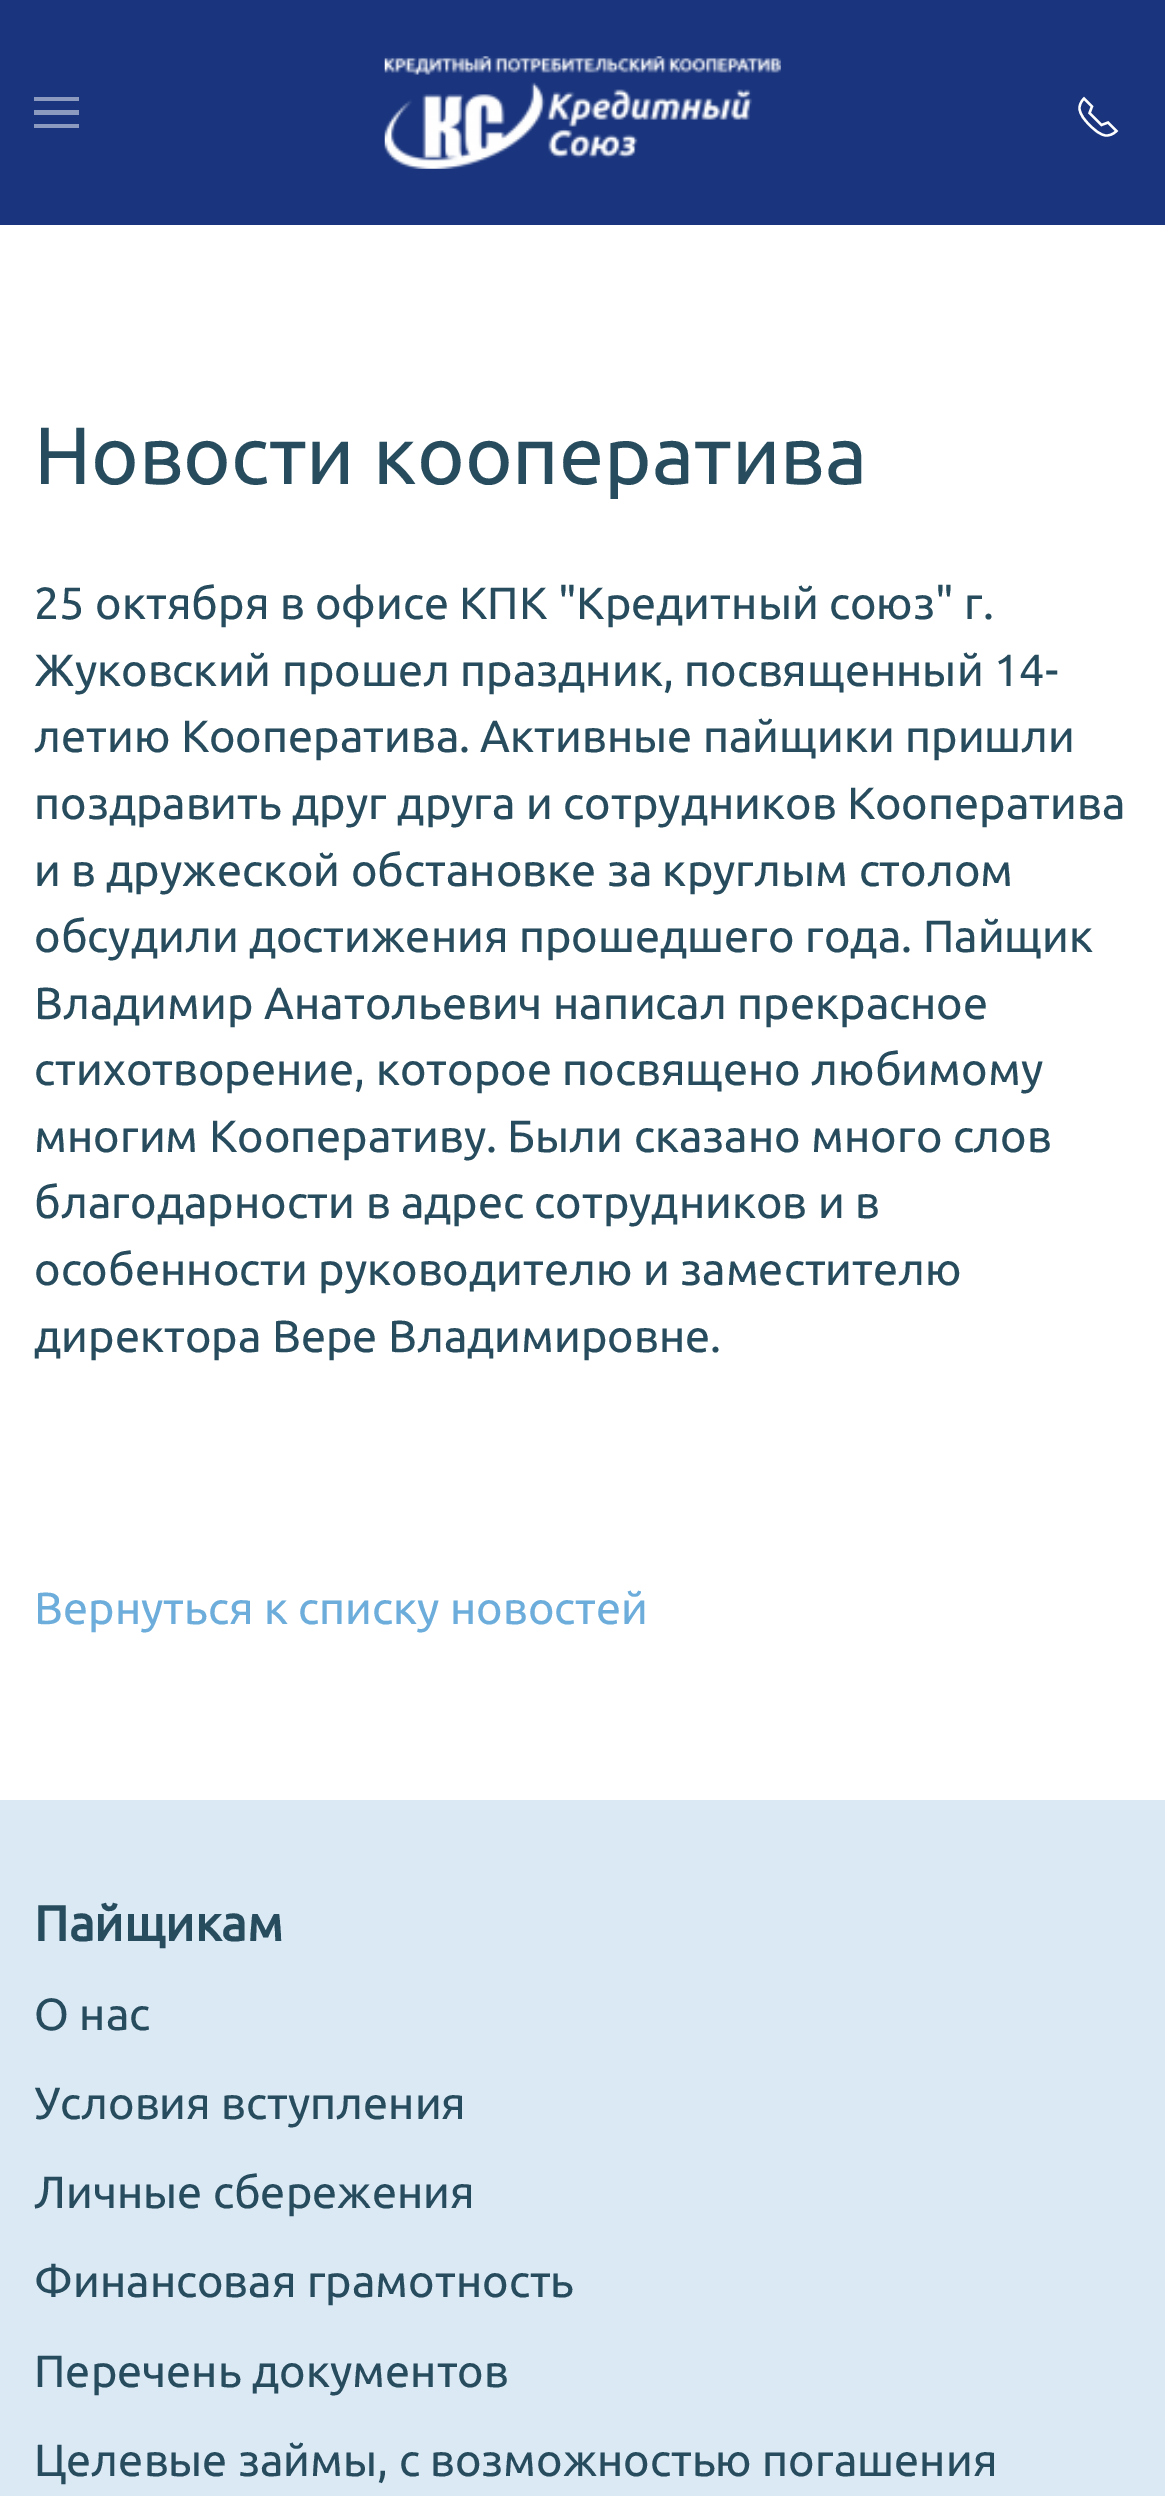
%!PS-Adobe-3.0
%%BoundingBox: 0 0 1165 2496
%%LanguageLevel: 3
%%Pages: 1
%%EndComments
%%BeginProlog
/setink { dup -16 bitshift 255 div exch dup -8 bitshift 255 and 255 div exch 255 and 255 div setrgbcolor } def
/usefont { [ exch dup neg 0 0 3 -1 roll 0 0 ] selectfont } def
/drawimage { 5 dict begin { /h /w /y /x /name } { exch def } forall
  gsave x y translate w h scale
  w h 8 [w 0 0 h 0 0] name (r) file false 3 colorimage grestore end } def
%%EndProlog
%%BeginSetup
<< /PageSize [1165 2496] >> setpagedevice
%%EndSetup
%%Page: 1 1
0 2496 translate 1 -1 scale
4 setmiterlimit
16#FFFFFF setink
0 0 1165 2496 rectfill
[
    [0 0 1165 225 16#1A357E]
    [34 97 45 4 16#8D9ABF]
    [34 110 45 5 16#8D9ABF]
    [34 124 45 4 16#8D9ABF]
] { aload pop setink rectfill } forall
(img1.raw) 384 56 397 113 drawimage
16#FFFFFF setink
2.3 setlinewidth
1089.5 125 moveto 1094 129.5 1100.5 135.5 1106.5 135.5 curveto 1112.5 135.5 1116.5 131 1116.5 131 curveto 1108 122.5 lineto 1101.5 125 lineto 1089.5 113 lineto 1092 106.5 lineto 1084 98.5 lineto 1084 98.5 1079.5 102.5 1079.5 108 curveto 1079.5 114.5 1085.5 121 1089.5 125 curveto stroke
/Ubuntu-Regular 81 usefont
16#274C5E setink
34 484 moveto (Новости кооператива) show
/Ubuntu-Regular 45 usefont
[
    [(25 октября в офисе КПК "Кредитный союз" г.) 34 619]
    [(Жуковский прошел праздник, посвященный 14-) 34 686]
    [(летию Кооператива. Активные пайщики пришли) 34 752]
    [(поздравить друг друга и сотрудников Кооператива) 34 819]
    [(и в дружеской обстановке за круглым столом) 34 886]
    [(обсудили достижения прошедшего года. Пайщик) 34 952]
    [(Владимир Анатольевич написал прекрасное) 34 1019]
    [(стихотворение, которое посвящено любимому) 34 1085]
    [(многим Кооперативу. Были сказано много слов) 34 1152]
    [(благодарности в адрес сотрудников и в) 34 1218]
    [(особенности руководителю и заместителю) 34 1285]
    [(директора Вере Владимировне.) 34 1352]
] { aload pop moveto show } forall
16#6CADDC setink
34 1624 moveto (Вернуться к списку новостей) show
16#DBE9F4 setink
0 1800 1165 696 rectfill
/Ubuntu-Bold 49.5 usefont
16#274C5E setink
34 1941 moveto (Пайщикам) show
/Ubuntu-Regular 45 usefont
[
    [(О нас) 34 2030]
    [(Условия вступления) 34 2119]
    [(Личные сбережения) 34 2208]
    [(Финансовая грамотность) 34 2297]
    [(Перечень документов) 34 2387]
    [(Целевые займы, с возможностью погашения) 34 2476]
] { aload pop moveto show } forall
showpage
%%EOF
